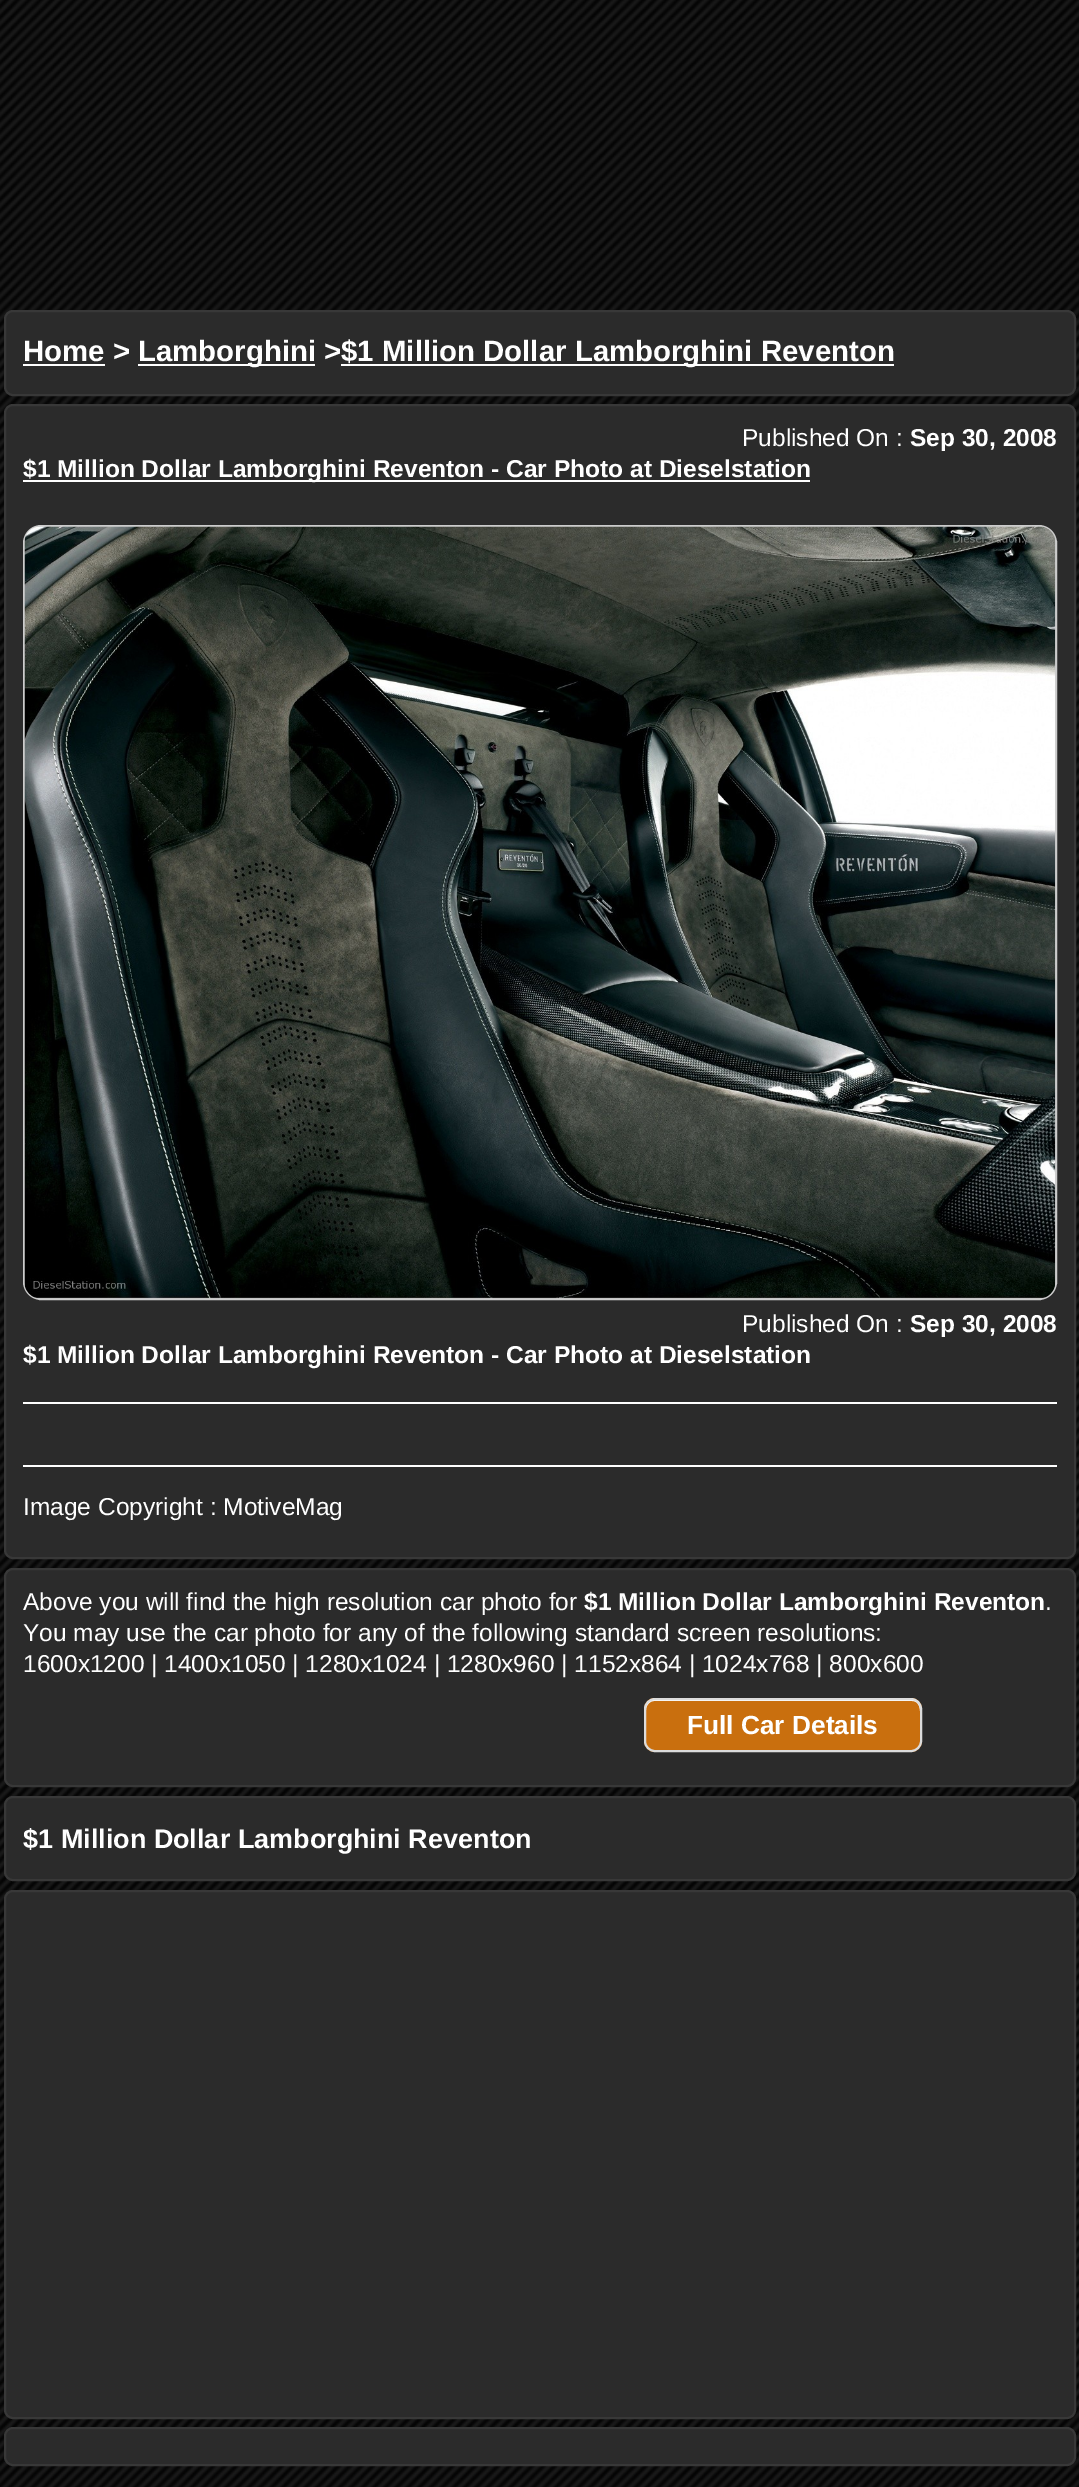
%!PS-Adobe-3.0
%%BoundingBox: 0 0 1079 2487
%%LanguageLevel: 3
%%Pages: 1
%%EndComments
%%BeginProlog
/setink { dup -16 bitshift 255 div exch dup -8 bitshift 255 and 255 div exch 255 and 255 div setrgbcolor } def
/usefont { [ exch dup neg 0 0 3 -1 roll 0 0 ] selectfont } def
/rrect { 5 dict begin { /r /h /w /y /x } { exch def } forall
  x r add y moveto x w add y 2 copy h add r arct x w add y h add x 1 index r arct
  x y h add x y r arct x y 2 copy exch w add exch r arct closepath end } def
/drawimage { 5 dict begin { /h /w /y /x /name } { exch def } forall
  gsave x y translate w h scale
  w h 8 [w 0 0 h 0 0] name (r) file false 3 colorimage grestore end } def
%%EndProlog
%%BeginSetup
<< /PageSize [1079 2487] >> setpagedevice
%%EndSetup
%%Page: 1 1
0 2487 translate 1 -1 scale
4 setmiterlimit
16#FFFFFF setink
0 0 1079 2487 rectfill
(img1.raw) 0 0 1079 2487 drawimage
16#2B2B2B setink
5 311 1070 84 8 rrect gsave fill grestore
16#383838 setink
2 setlinewidth
stroke
/LiberationSans-Bold 29.4 usefont
16#FFFFFF setink
23 361 moveto (Home >) show
23 364 82 2 rectfill
138 364 177 2 rectfill
138 361 moveto (Lamborghini >) show
341 364 553 2 rectfill
341 361 moveto ($1 Million Dollar Lamborghini Reventon) show
16#2B2B2B setink
5 405 1070 1153 8 rrect gsave fill grestore
16#383838 setink
stroke
/LiberationSans-Regular 24.5 usefont
16#FFFFFF setink
742 446 moveto (Published On :) show
/LiberationSans-Bold 24.5 usefont
910 446 moveto (Sep 30, 2008) show
23 480 787 2 rectfill
23 477 moveto ($1 Million Dollar Lamborghini Reventon - Car Photo at Dieselstation) show
16#CCCCCC setink
24 526 1032 773 17 rrect stroke
(img2.raw) 24 526 1032 773 drawimage
/LiberationSans-Regular 24.5 usefont
16#FFFFFF setink
742 1332 moveto (Published On :) show
/LiberationSans-Bold 24.5 usefont
910 1332 moveto (Sep 30, 2008) show
23 1363 moveto ($1 Million Dollar Lamborghini Reventon - Car Photo at Dieselstation) show
23 1402 1034 2 rectfill
23 1465 1034 2 rectfill
/LiberationSans-Regular 24.5 usefont
23 1515 moveto (Image Copyright : MotiveMag) show
16#2B2B2B setink
5 1569 1070 217 8 rrect gsave fill grestore
16#383838 setink
stroke
16#FFFFFF setink
23 1610 moveto (Above you will find the high resolution car photo for) show
/LiberationSans-Bold 24.5 usefont
584 1610 moveto ($1 Million Dollar Lamborghini Reventon) show
/LiberationSans-Regular 24.5 usefont
[
    [(.) 1045 1610]
    [(You may use the car photo for any of the following standard screen resolutions:) 23 1641]
    [(1600x1200 | 1400x1050 | 1280x1024 | 1280x960 | 1152x864 | 1024x768 | 800x600) 23 1672]
] { aload pop moveto show } forall
16#C96F0E setink
644 1698 278 54 11 rrect fill
16#FFFFFF setink
654 1701 moveto 912 1701 lineto 922 1701 920 1715 920 1721 curveto 920 1746 lineto 921 1744 921 1743 921 1741 curveto 921 1708 lineto 921 1703 917 1699 912 1699 curveto 655 1699 lineto 650 1699 646 1703 646 1708 curveto 646 1710 lineto 646 1705 650 1701 654 1701 curveto closepath fill
16#DCDCDC setink
645 1699 276 52 10 rrect stroke
/LiberationSans-Bold 26.25 usefont
16#FFFFFF setink
687 1734 moveto (Full Car Details) show
16#2B2B2B setink
5 1797 1070 83 8 rrect gsave fill grestore
16#383838 setink
stroke
/LiberationSans-Bold 27 usefont
16#FFFFFF setink
23 1848 moveto ($1 Million Dollar Lamborghini Reventon) show
16#2B2B2B setink
5 1891 1070 527 8 rrect gsave fill grestore
16#383838 setink
stroke
16#2B2B2B setink
5 2428 1070 37 8 rrect gsave fill grestore
16#383838 setink
stroke
showpage
%%EOF
